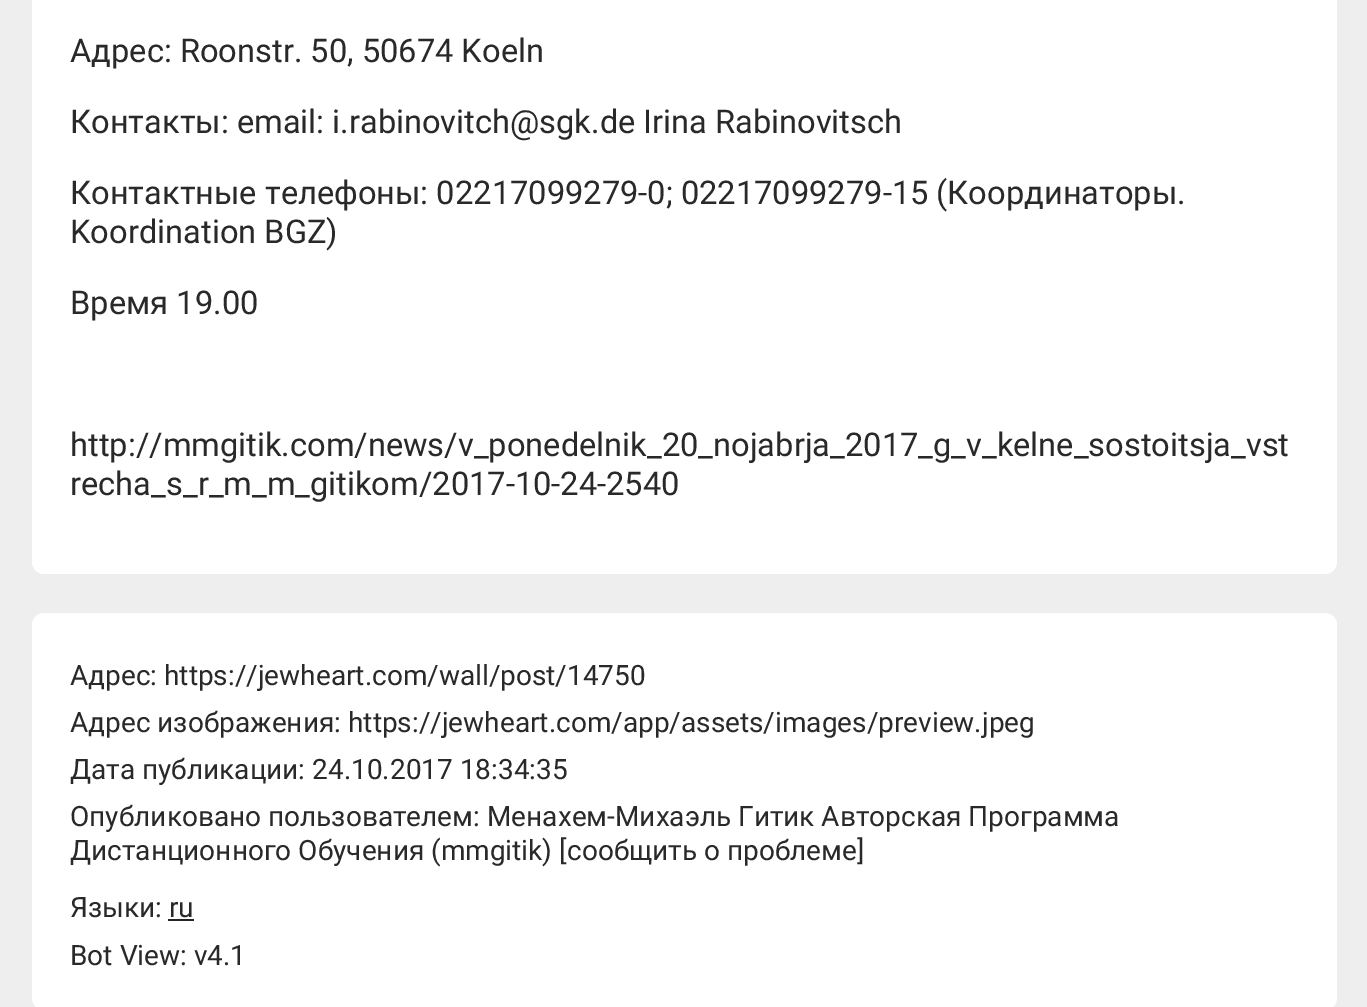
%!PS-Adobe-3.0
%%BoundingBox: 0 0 1367 1007
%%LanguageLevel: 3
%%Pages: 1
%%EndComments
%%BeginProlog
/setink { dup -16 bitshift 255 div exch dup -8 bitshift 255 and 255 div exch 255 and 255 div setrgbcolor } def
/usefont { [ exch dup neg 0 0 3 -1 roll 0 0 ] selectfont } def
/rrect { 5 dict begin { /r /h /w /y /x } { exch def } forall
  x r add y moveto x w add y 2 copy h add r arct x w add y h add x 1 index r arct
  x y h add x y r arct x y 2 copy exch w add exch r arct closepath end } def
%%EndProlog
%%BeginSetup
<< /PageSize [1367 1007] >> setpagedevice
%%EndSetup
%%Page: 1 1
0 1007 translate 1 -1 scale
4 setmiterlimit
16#EEEEEE setink
0 0 1367 1007 rectfill
16#FFFFFF setink
32 -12 1305 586 12 rrect fill
/Roboto-Regular 32.65 usefont
16#292929 setink
[
    [(Адрес: Roonstr. 50, 50674 Koeln) 70 62]
    [(Контакты: email: i.rabinovitch@sgk.de) 70 133]
    [(Irina Rabinovitsch) 643 133]
    [(Контактные телефоны: 02217099279-0; 02217099279-15 \(Координаторы.) 70 204]
    [(Koordination BGZ\)) 70 243]
    [(Время 19.00) 70 314]
    [(http://mmgitik.com/news/v_ponedelnik_20_nojabrja_2017_g_v_kelne_sostoitsja_vst) 70 456]
    [(recha_s_r_m_m_gitikom/2017-10-24-2540) 70 495]
] { aload pop moveto show } forall
16#FFFFFF setink
32 613 1305 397 12 rrect fill
/Roboto-Regular 28 usefont
16#292929 setink
[
    [(Адрес:) 70 685]
    [(https://jewheart.com/wall/post/14750) 164 685]
    [(Адрес изображения:) 70 732]
    [(https://jewheart.com/app/assets/images/preview.jpeg) 348 732]
    [(Дата публикации: 24.10.2017 18:34:35) 70 779]
    [(Опубликовано пользователем:) 70 826]
    [(Менахем-Михаэль Гитик Авторская Программа) 487 826]
    [(Дистанционного Обучения \(mmgitik\)) 70 860]
    [([) 559 860]
    [(сообщить о проблеме) 567 860]
    [(]) 857 860]
    [(Языки:) 70 917]
    [(ru) 169 917]
] { aload pop moveto show } forall
16#252525 setink
168 919 26 2 rectfill
16#292929 setink
70 965 moveto (Bot View: v4.1) show
showpage
%%EOF
